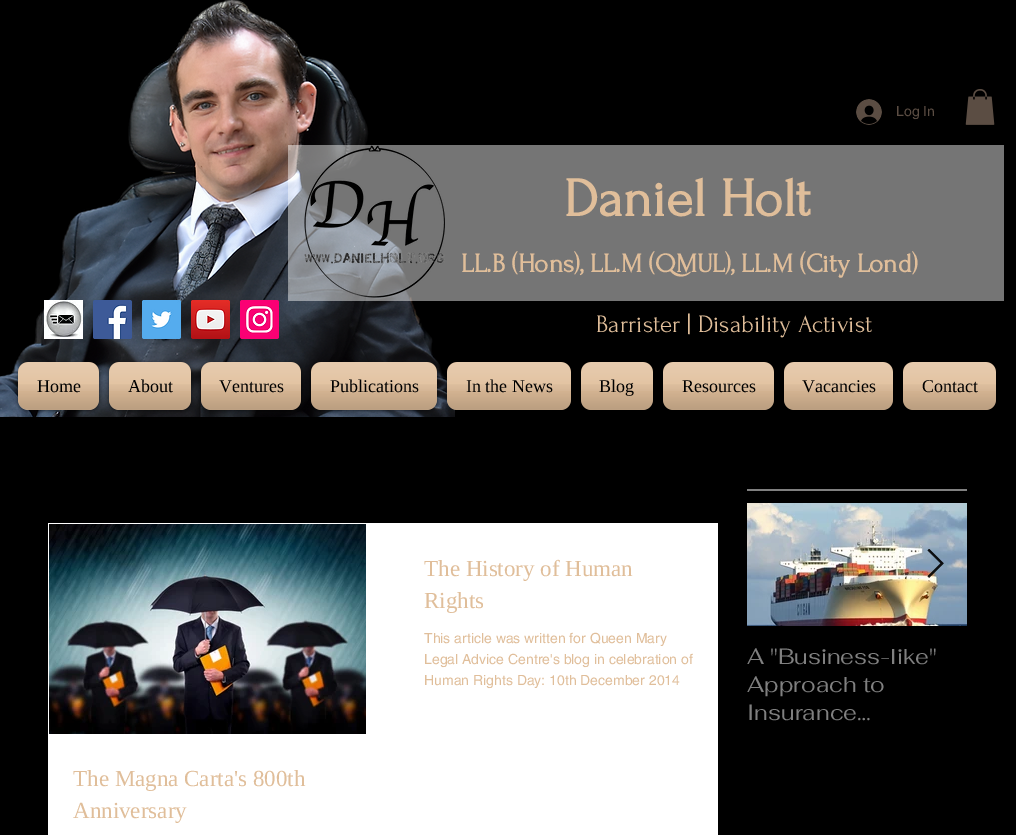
%!PS-Adobe-3.0
%%BoundingBox: 0 0 1016 835
%%LanguageLevel: 3
%%Pages: 1
%%EndComments
%%BeginProlog
/setink { dup -16 bitshift 255 div exch dup -8 bitshift 255 and 255 div exch 255 and 255 div setrgbcolor } def
/usefont { [ exch dup neg 0 0 3 -1 roll 0 0 ] selectfont } def
/setalpha { dup .setfillconstantalpha .setstrokeconstantalpha } def
/rrect { 5 dict begin { /r /h /w /y /x } { exch def } forall
  x r add y moveto x w add y 2 copy h add r arct x w add y h add x 1 index r arct
  x y h add x y r arct x y 2 copy exch w add exch r arct closepath end } def
/softshadow { 12 dict begin { /a /b /q /h /w /y /x } { exch def } forall gsave /was 0 def
  9 -2 -9 { dup b mul 4 div /e exch def 1 sub .425 mul 2.718 exch exp 1 add a .99 .min exch div /now exch def
    1 1 now sub 1 was sub div sub setalpha /was now def
    w h .min e 2 mul add 0 gt { x e sub y e sub w e 2 mul add h e 2 mul add
      q e add b .6 mul add w h .min 2 div e add .min 0 .max rrect fill } if } for grestore end } def
/drawimage { 5 dict begin { /h /w /y /x /name } { exch def } forall
  gsave x y translate w h scale
  w h 8 [w 0 0 h 0 0] name (r) file false 3 colorimage grestore end } def
%%EndProlog
%%BeginSetup
<< /PageSize [1016 835] /PageUsesTransparency true >> setpagedevice
%%EndSetup
%%Page: 1 1
0 .pushpdf14devicefilter
0 835 translate 1 -1 scale
4 setmiterlimit
16#000000 setink
0 0 1016 835 rectfill
(img1.raw) 0 0 455 417 drawimage
(img2.raw) 856 99 26 26 drawimage
/helvetica-Regular 14 usefont
16#5B4D43 setink
896 116 moveto (Log In) show
(img3.raw) 965 89 30 36 drawimage
0.46 setalpha
16#FFFFFE setink
288 145 716 156 rectfill
1 setalpha
(img4.raw) 304 145 141 153 drawimage
/Forum-Bold 55 usefont
16#E0BE9A setink
564 216 moveto (Daniel Holt) show
/Forum-Bold 27 usefont
461 272 moveto (LL.B \(Hons\), LL.M \(QMUL\), LL.M \(City Lond\)) show
(img5.raw) 44 300 39 39 drawimage
(img6.raw) 93 300 39 39 drawimage
(img7.raw) 142 300 39 39 drawimage
(img8.raw) 191 300 39 39 drawimage
(img9.raw) 240 300 39 39 drawimage
/Forum-Regular 25 usefont
596 332 moveto (Barrister | Disability Activist) show
16#000000 setink
18 363 81 48 10 2 0.6 softshadow
16#E0BE9A setink
18 362 81 48 10 rrect fill
(img10.raw) 18 362 81 29 drawimage
(img11.raw) 18 384 81 26 drawimage
/LiberationSerif-Regular 18 usefont
16#000000 setink
37 392 moveto (Home) show
109 363 82 48 10 2 0.6 softshadow
16#E0BE9A setink
109 362 82 48 10 rrect fill
(img12.raw) 109 362 82 29 drawimage
(img13.raw) 109 384 82 26 drawimage
16#000000 setink
128 392 moveto (About) show
201 363 100 48 10 2 0.6 softshadow
16#E0BE9A setink
201 362 100 48 10 rrect fill
(img14.raw) 201 362 100 29 drawimage
(img15.raw) 201 384 100 26 drawimage
16#000000 setink
219 392 moveto (Ventures) show
311 363 126 48 10 2 0.6 softshadow
16#E0BE9A setink
311 362 126 48 10 rrect fill
(img16.raw) 311 362 126 29 drawimage
(img17.raw) 311 384 126 26 drawimage
16#000000 setink
330 392 moveto (Publications) show
447 363 124 48 10 2 0.6 softshadow
16#E0BE9A setink
447 362 124 48 10 rrect fill
(img18.raw) 447 362 124 29 drawimage
(img19.raw) 447 384 124 26 drawimage
16#000000 setink
466 392 moveto (In the News) show
16#E0BE9A setink
581 362 72 48 10 rrect fill
(img20.raw) 581 362 72 29 drawimage
(img21.raw) 581 384 72 26 drawimage
16#000000 setink
599 392 moveto (Blog) show
16#E0BE9A setink
663 362 111 48 10 rrect fill
(img22.raw) 663 362 111 29 drawimage
(img23.raw) 663 384 111 26 drawimage
16#000000 setink
682 392 moveto (Resources) show
16#E0BE9A setink
784 362 109 48 10 rrect fill
(img24.raw) 784 362 109 29 drawimage
(img25.raw) 784 384 109 26 drawimage
16#000000 setink
802 392 moveto (Vacancies) show
16#E0BE9A setink
903 362 93 48 10 rrect fill
(img26.raw) 903 362 93 29 drawimage
(img27.raw) 903 384 93 26 drawimage
16#000000 setink
922 392 moveto (Contact) show
16#808080 setink
747 489 220 2 rectfill
16#FFFFFF setink
48 523 670 312 rectfill
/LiberationSerif-Regular 23 usefont
16#E0BE9A setink
424 576 moveto (The History of Human) show
424 608 moveto (Rights) show
/helvetica-Regular 14 usefont
[
    [(This article was written for Queen Mary) 424 643]
    [(Legal Advice Centre's blog in celebration of) 424 664]
    [(Human Rights Day: 10th December 2014) 424 685]
] { aload pop moveto show } forall
(img28.raw) 49 524 317 210 drawimage
/LiberationSerif-Regular 23 usefont
73 786 moveto (The Magna Carta's 800th) show
73 818 moveto (Anniversary) show
(img30.raw) 747 503 220 123 drawimage
(img29.raw) 927 549 17 29 drawimage
/Fahkwang-Regular 22 usefont
16#808080 setink
[
    [(A "Business-like") 747 664]
    [(Approach to) 747 692]
    [(Insurance…) 747 720]
] { aload pop moveto show } forall
.poppdf14devicefilter showpage
%%EOF
